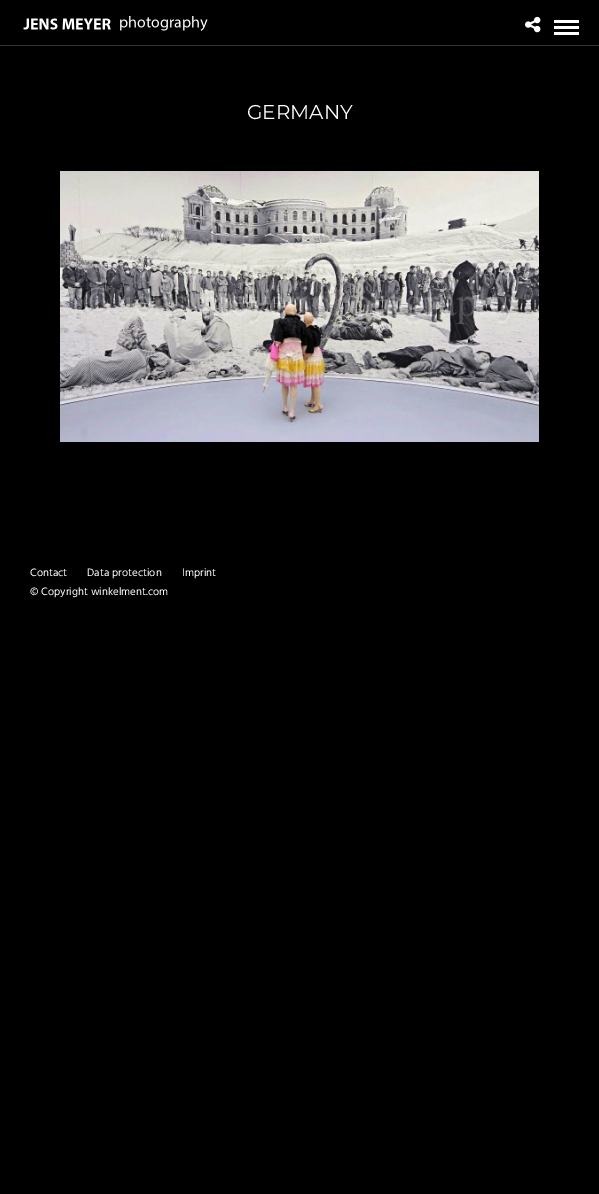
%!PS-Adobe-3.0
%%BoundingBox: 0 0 599 1194
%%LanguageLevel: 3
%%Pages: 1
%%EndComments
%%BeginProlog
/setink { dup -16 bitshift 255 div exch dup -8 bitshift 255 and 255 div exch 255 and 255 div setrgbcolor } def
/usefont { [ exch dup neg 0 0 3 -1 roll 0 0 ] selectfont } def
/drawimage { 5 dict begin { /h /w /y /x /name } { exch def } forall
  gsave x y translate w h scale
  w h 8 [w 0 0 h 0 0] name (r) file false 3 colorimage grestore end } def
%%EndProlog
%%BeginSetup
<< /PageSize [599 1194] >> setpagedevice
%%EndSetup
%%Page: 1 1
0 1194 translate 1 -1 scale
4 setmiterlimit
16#000000 setink
0 0 599 1194 rectfill
16#333333 setink
0 45 599 1 rectfill
(img1.raw) 23 16 185 15 drawimage
(img2.raw) 525 16 16 17 drawimage
[
    [554 20 25 3 16#FFFFFF]
    [554 26 25 3 16#FFFFFF]
    [554 32 25 3 16#FFFFFF]
] { aload pop setink rectfill } forall
/Montserrat-Regular 20 usefont
247 119 moveto (GERMANY) show
(img3.raw) 60 171 479 271 drawimage
/Hind-Regular 11 usefont
[
    [(Contact) 30 576]
    [(Data protection) 87 576]
    [(Imprint) 182 576]
    [(© Copyright winkelment.com) 30 595]
] { aload pop moveto show } forall
showpage
%%EOF
